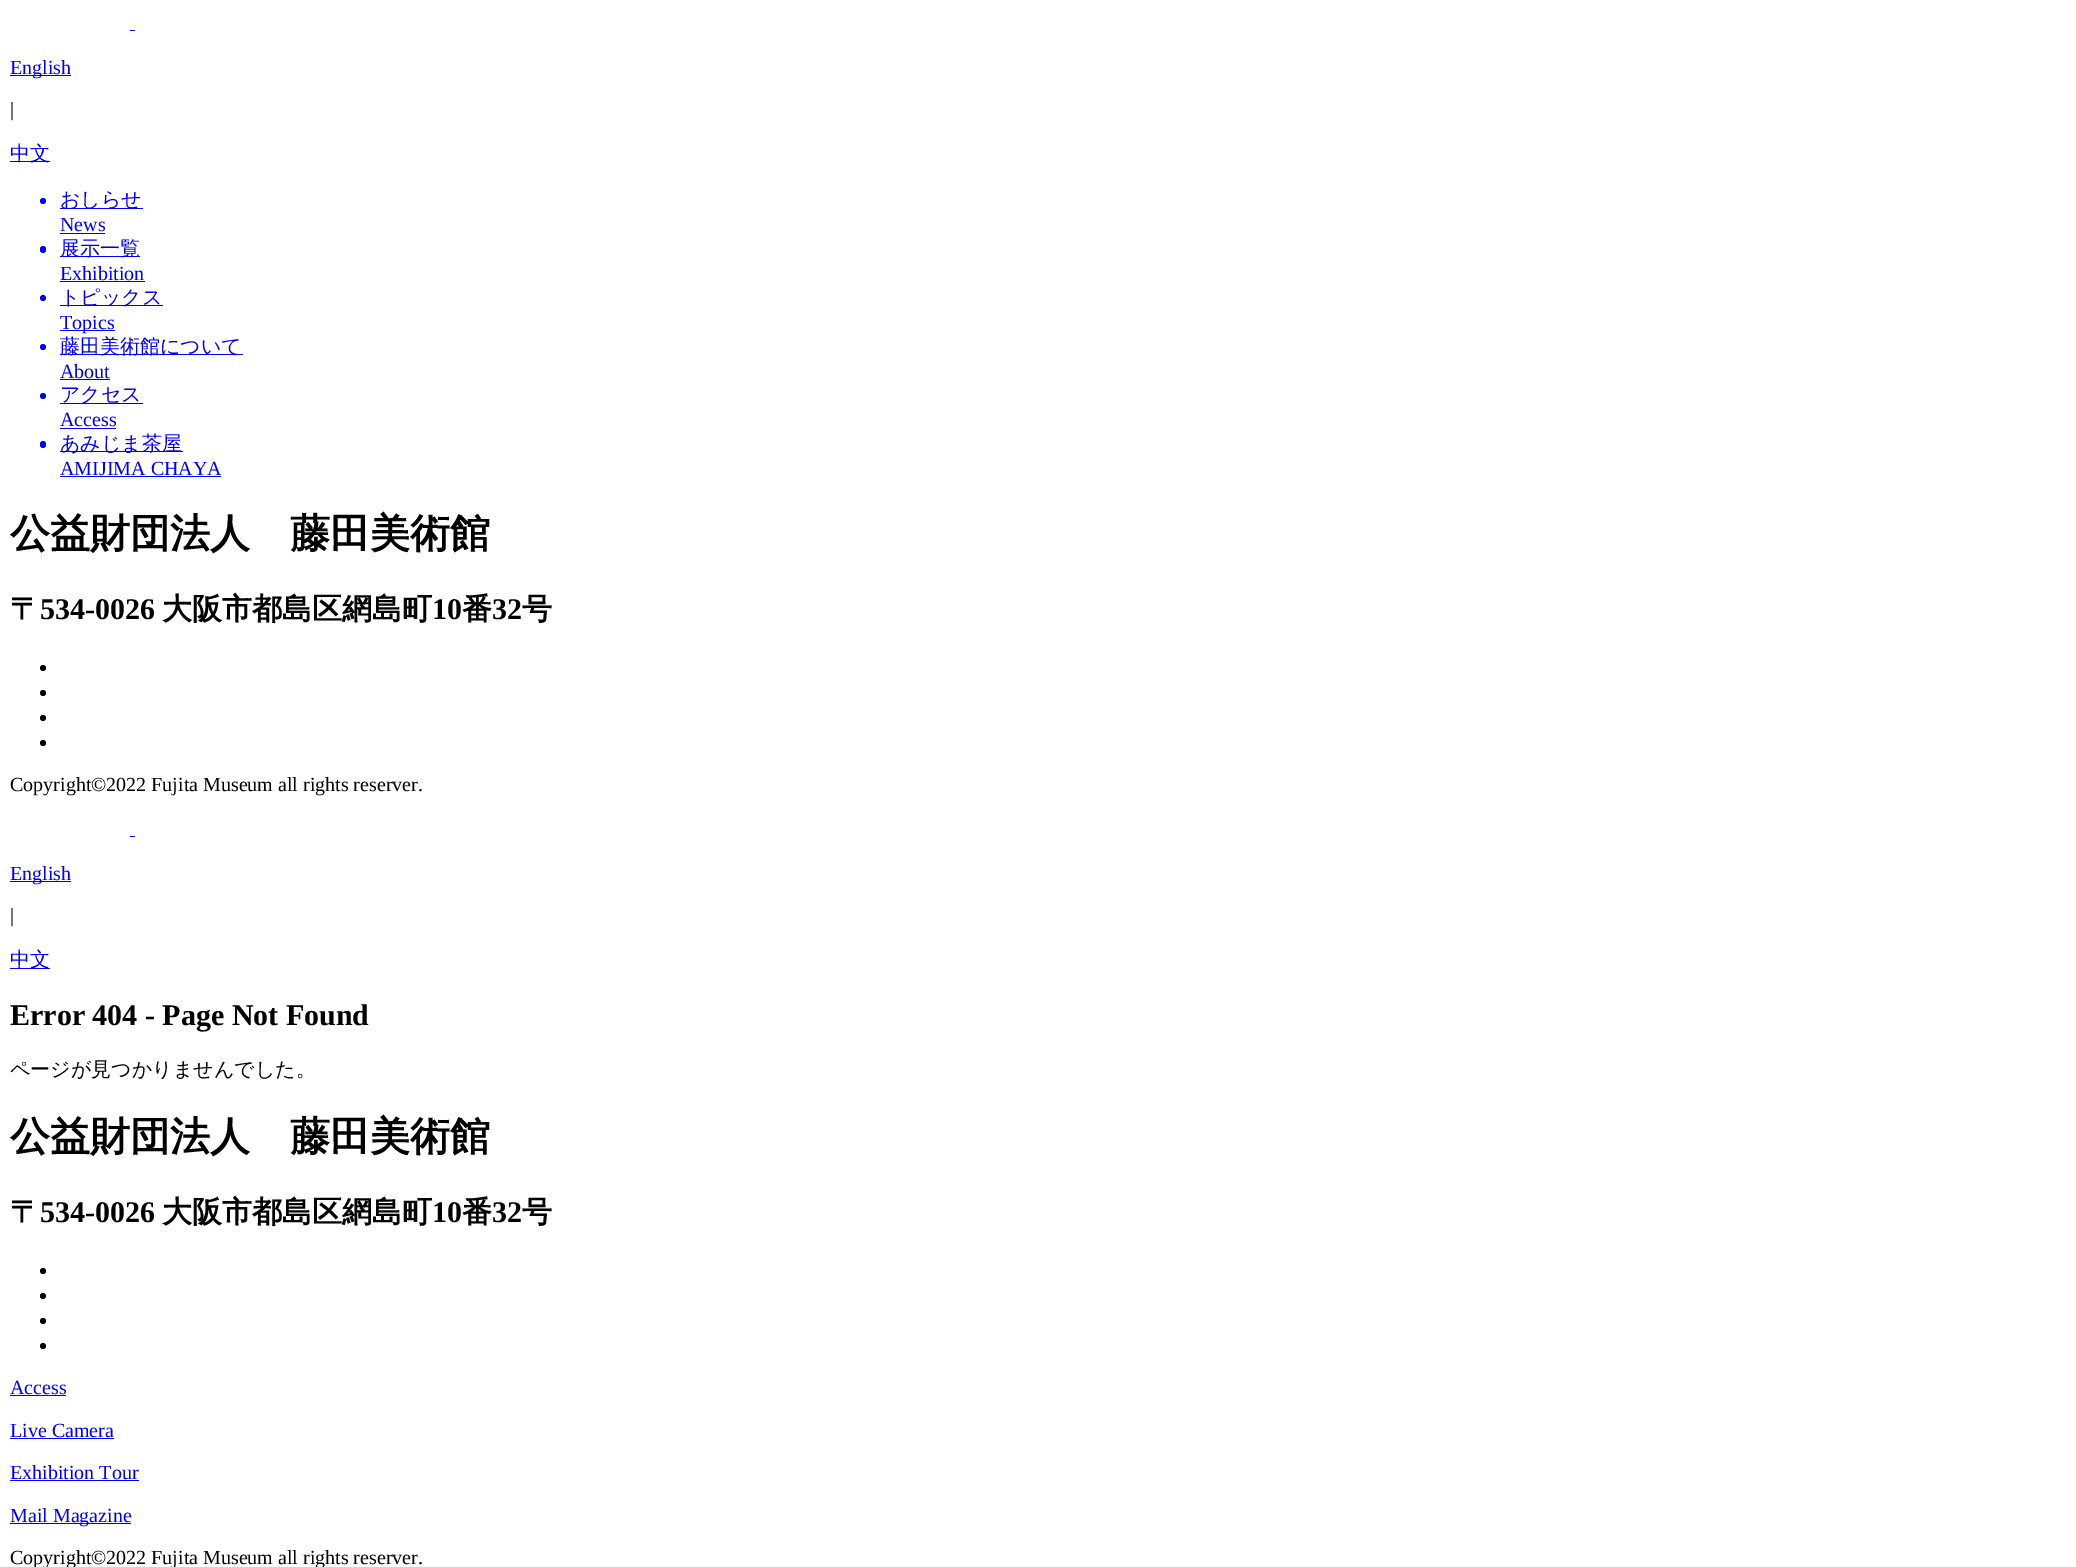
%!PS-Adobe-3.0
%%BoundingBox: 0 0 2076 1567
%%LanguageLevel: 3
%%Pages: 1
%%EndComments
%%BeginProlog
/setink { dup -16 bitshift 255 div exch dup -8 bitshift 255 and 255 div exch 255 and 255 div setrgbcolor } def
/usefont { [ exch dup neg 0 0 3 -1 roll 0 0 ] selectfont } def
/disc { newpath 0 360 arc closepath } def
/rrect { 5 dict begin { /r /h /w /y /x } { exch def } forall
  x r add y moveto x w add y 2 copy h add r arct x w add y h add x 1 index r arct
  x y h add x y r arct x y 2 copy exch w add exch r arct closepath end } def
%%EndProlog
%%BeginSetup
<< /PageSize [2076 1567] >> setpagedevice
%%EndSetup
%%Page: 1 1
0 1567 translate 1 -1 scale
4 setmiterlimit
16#FFFFFF setink
0 0 2076 1567 rectfill
16#0000EE setink
130 30 5 1 rectfill
10 75 61 1 rectfill
/LiberationSerif-Regular 20 usefont
10 74 moveto (English) show
16#000000 setink
10 116 moveto (|) show
16#0000EE setink
10 161 40 1 rectfill
/WenQuanYiZenHei-Medium 20 usefont
10 160 moveto (中文) show
43 201 3 disc fill
60 208 83 1 rectfill
60 206 moveto (おしらせ) show
/LiberationSerif-Regular 20 usefont
60 231 moveto (News) show
60 233 45 1 rectfill
40 246 6 7 3 rrect fill
60 256 80 1 rectfill
/WenQuanYiZenHei-Medium 20 usefont
60 255 moveto (展示一覧) show
/LiberationSerif-Regular 20 usefont
60 280 moveto (Exhibition) show
60 281 85 1 rectfill
43 298 3 disc fill
60 305 103 1 rectfill
/WenQuanYiZenHei-Medium 20 usefont
60 304 moveto (トピックス) show
60 330 55 1 rectfill
/LiberationSerif-Regular 20 usefont
60 329 moveto (Topics) show
43 347 3 disc fill
60 354 183 1 rectfill
/WenQuanYiZenHei-Medium 20 usefont
60 353 moveto (藤田美術館について) show
/LiberationSerif-Regular 20 usefont
60 378 moveto (About) show
60 379 50 1 rectfill
43 396 3 disc fill
60 403 83 1 rectfill
/WenQuanYiZenHei-Medium 20 usefont
60 401 moveto (アクセス) show
/LiberationSerif-Regular 20 usefont
60 426 moveto (Access) show
60 428 56 1 rectfill
40 441 6 7 3 rrect fill
60 451 123 1 rectfill
/WenQuanYiZenHei-Medium 20 usefont
60 450 moveto (あみじま茶屋) show
/LiberationSerif-Regular 20 usefont
60 475 moveto (AMIJIMA CHAYA) show
60 476 161 1 rectfill
/WenQuanYiZenHei-Bold 40 usefont
16#000000 setink
10 547 moveto (公益財団法人　藤田美術館) show
/WenQuanYiZenHei-Bold 30 usefont
10 619 moveto (〒) show
/LiberationSerif-Bold 30 usefont
40 619 moveto (534-0026) show
/WenQuanYiZenHei-Bold 30 usefont
162 619 moveto (大阪市都島区網島町) show
/LiberationSerif-Bold 30 usefont
432 619 moveto (10) show
/WenQuanYiZenHei-Bold 30 usefont
462 619 moveto (番) show
/LiberationSerif-Bold 30 usefont
492 619 moveto (32) show
/WenQuanYiZenHei-Bold 30 usefont
522 619 moveto (号) show
43 668 3 disc fill
43 693 3 disc fill
43 718 3 disc fill
43 743 3 disc fill
/LiberationSerif-Regular 20 usefont
10 791 moveto (Copyright©2022 Fujita Museum all rights reserver.) show
16#0000EE setink
130 836 5 1 rectfill
10 881 61 1 rectfill
10 880 moveto (English) show
16#000000 setink
10 922 moveto (|) show
16#0000EE setink
10 968 40 1 rectfill
/WenQuanYiZenHei-Medium 20 usefont
10 966 moveto (中文) show
/LiberationSerif-Bold 30 usefont
16#000000 setink
10 1025 moveto (Error 404 - Page Not Found) show
/WenQuanYiZenHei-Medium 20 usefont
10 1076 moveto (ページが見つかりませんでした。) show
/WenQuanYiZenHei-Bold 40 usefont
10 1150 moveto (公益財団法人　藤田美術館) show
/WenQuanYiZenHei-Bold 30 usefont
10 1222 moveto (〒) show
/LiberationSerif-Bold 30 usefont
40 1222 moveto (534-0026) show
/WenQuanYiZenHei-Bold 30 usefont
162 1222 moveto (大阪市都島区網島町) show
/LiberationSerif-Bold 30 usefont
432 1222 moveto (10) show
/WenQuanYiZenHei-Bold 30 usefont
462 1222 moveto (番) show
/LiberationSerif-Bold 30 usefont
492 1222 moveto (32) show
/WenQuanYiZenHei-Bold 30 usefont
522 1222 moveto (号) show
43 1271 3 disc fill
43 1296 3 disc fill
43 1321 3 disc fill
43 1346 3 disc fill
/LiberationSerif-Regular 20 usefont
16#0000EE setink
10 1394 moveto (Access) show
10 1395 56 1 rectfill
10 1437 moveto (Live Camera) show
10 1438 104 1 rectfill
10 1479 moveto (Exhibition Tour) show
10 1480 129 1 rectfill
10 1523 121 1 rectfill
10 1522 moveto (Mail Magazine) show
16#000000 setink
10 1564 moveto (Copyright©2022 Fujita Museum all rights reserver.) show
showpage
%%EOF
